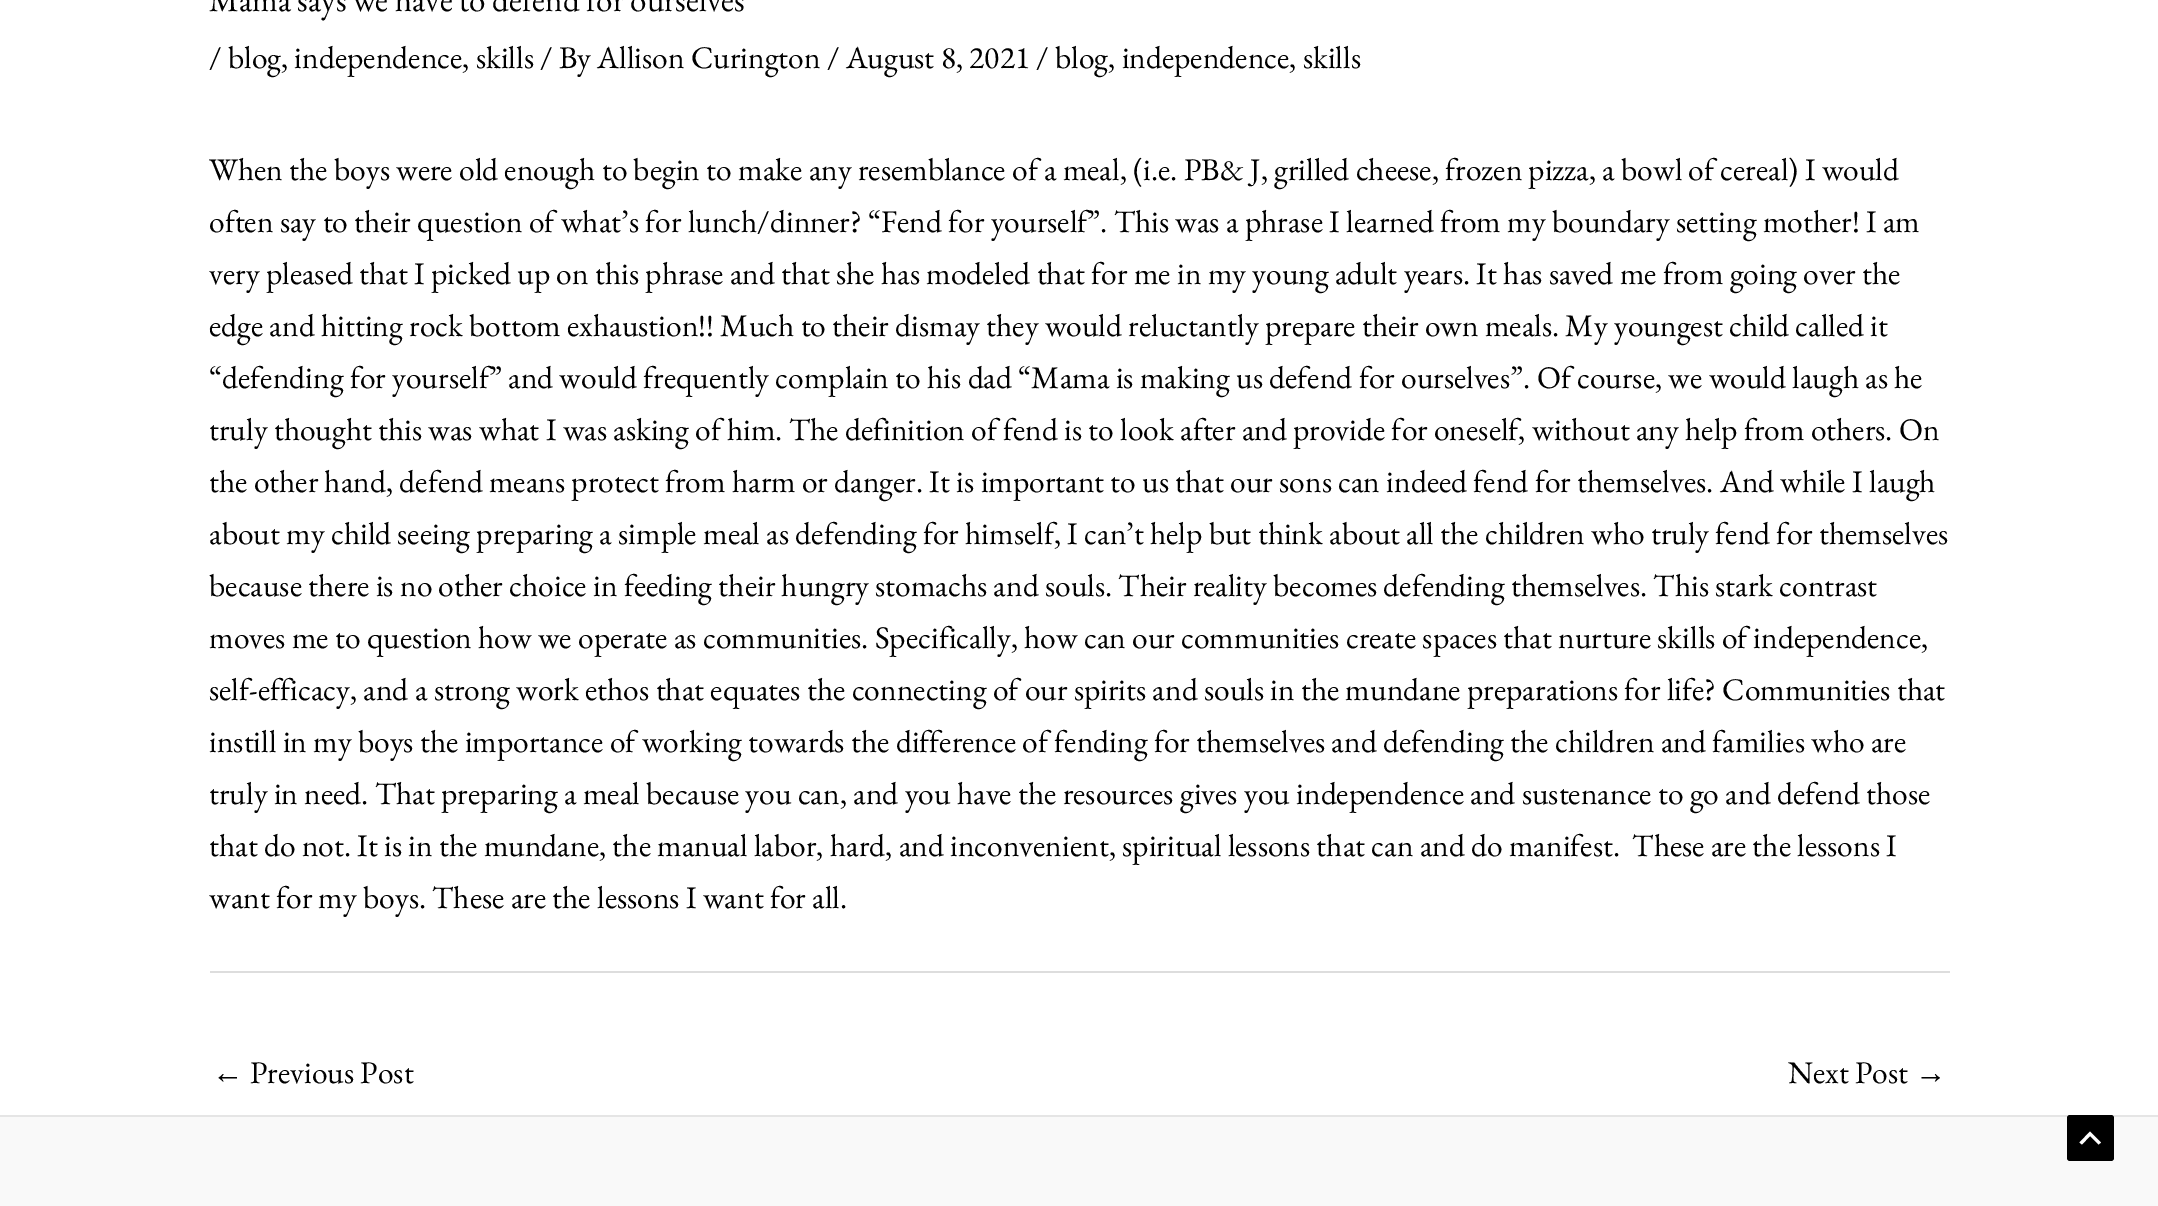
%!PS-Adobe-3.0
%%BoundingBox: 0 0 2158 1206
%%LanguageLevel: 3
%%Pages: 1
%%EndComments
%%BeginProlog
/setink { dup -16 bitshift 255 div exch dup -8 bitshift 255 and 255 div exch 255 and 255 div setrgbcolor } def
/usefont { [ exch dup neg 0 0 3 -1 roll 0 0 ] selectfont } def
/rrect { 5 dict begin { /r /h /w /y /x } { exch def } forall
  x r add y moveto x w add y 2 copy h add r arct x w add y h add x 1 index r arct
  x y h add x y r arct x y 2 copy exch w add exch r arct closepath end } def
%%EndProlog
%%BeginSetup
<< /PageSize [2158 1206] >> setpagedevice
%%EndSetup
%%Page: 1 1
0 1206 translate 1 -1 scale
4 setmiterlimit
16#FFFFFF setink
0 0 2158 1206 rectfill
/EBGaramond-Regular 33 usefont
16#000000 setink
209 11 moveto (Mama says we have to defend for ourselves) show
/EBGaramond-Regular 31.5 usefont
[
    [(/ blog, independence, skills / By Allison Curington / August 8, 2021 / blog, independence, skills) 209 68]
    [(When the boys were old enough to begin to make any resemblance of a meal, \(i.e. PB& J, grilled cheese, frozen pizza, a bowl of cereal\) I would) 209 180]
    [(often say to their question of what’s for lunch/dinner? “Fend for yourself”. This was a phrase I learned from my boundary setting mother! I am) 209 232]
    [(very pleased that I picked up on this phrase and that she has modeled that for me in my young adult years. It has saved me from going over the) 209 284]
    [(edge and hitting rock bottom exhaustion!! Much to their dismay they would reluctantly prepare their own meals. My youngest child called it) 209 336]
    [(“defending for yourself” and would frequently complain to his dad “Mama is making us defend for ourselves”. Of course, we would laugh as he) 209 388]
    [(truly thought this was what I was asking of him. The definition of fend is to look after and provide for oneself, without any help from others. On) 209 440]
    [(the other hand, defend means protect from harm or danger. It is important to us that our sons can indeed fend for themselves. And while I laugh) 209 492]
    [(about my child seeing preparing a simple meal as defending for himself, I can’t help but think about all the children who truly fend for themselves) 209 544]
    [(because there is no other choice in feeding their hungry stomachs and souls. Their reality becomes defending themselves. This stark contrast) 209 596]
    [(moves me to question how we operate as communities. Specifically, how can our communities create spaces that nurture skills of independence,) 209 648]
    [(self-efficacy, and a strong work ethos that equates the connecting of our spirits and souls in the mundane preparations for life? Communities that) 209 700]
    [(instill in my boys the importance of working towards the difference of fending for themselves and defending the children and families who are) 209 752]
    [(truly in need. That preparing a meal because you can, and you have the resources gives you independence and sustenance to go and defend those) 209 804]
    [(that do not. It is in the mundane, the manual labor, hard, and inconvenient, spiritual lessons that can and do manifest.  These are the lessons I) 209 856]
    [(want for my boys. These are the lessons I want for all.) 209 908]
] { aload pop moveto show } forall
16#DDDDDD setink
210 971 1740 2 rectfill
/LiberationSerif-Regular 31.5 usefont
16#000000 setink
212 1083 moveto (←) show
/EBGaramond-Regular 31.5 usefont
250 1083 moveto (Previous Post) show
1788 1083 moveto (Next Post) show
/LiberationSerif-Regular 31.5 usefont
1915 1083 moveto (→) show
16#F9F9F9 setink
0 1117 2158 89 rectfill
16#E5E5E5 setink
0 1115 2158 2 rectfill
16#000000 setink
2067 1115 47 46 3 rrect fill
16#FFFFFF setink
2101 1142.5 moveto 2090 1131.5 lineto 2079.5 1142.5 lineto 2082 1144.5 lineto 2090 1136 lineto 2098.5 1144.5 lineto closepath fill
showpage
%%EOF
